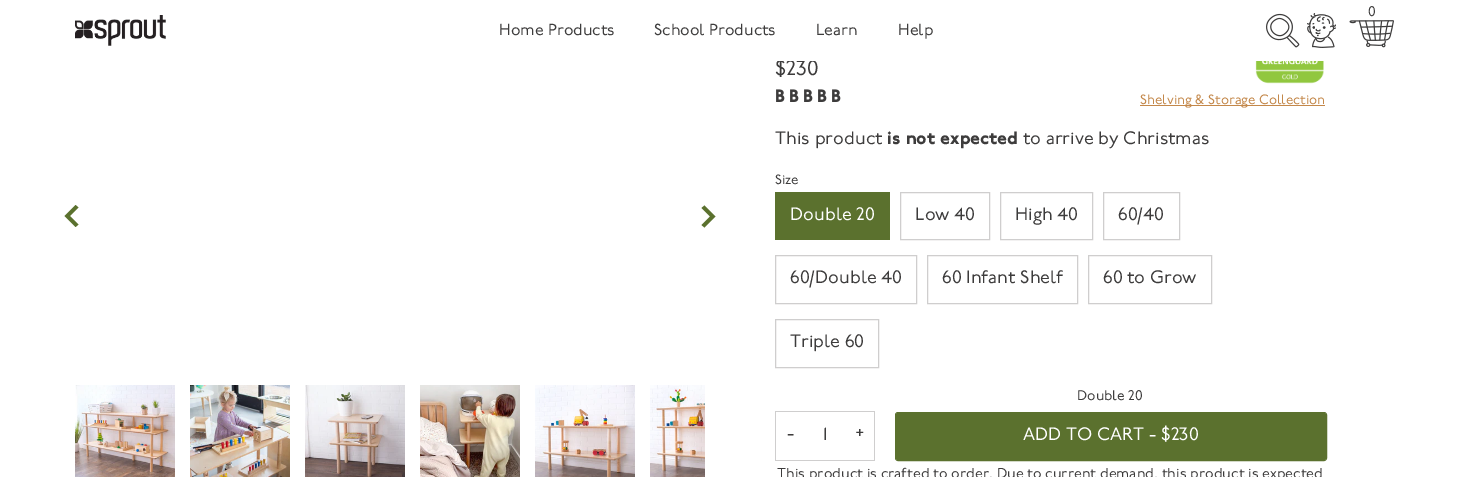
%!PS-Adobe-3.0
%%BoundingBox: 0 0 1470 477
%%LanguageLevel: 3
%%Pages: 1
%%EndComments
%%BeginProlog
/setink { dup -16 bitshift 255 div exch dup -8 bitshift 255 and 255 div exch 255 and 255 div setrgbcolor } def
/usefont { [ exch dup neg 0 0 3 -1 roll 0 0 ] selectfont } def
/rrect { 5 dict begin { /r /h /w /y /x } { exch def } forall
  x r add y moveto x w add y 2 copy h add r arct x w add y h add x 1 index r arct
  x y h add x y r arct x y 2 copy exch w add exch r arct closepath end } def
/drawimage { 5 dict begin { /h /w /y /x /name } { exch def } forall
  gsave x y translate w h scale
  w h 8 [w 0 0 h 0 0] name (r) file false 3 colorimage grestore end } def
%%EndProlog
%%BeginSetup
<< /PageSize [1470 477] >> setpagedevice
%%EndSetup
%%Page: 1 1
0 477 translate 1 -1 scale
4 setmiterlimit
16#FFFFFF setink
0 0 1470 477 rectfill
/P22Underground-Regular 21 usefont
16#3D3C3C setink
775 75 moveto ($230) show
16#FFFFFF setink
777 58 39 3 rectfill
/P22Underground-Regular 14 usefont
16#3D3C3C setink
1368 16 moveto (0) show
(img1.raw) 1349 20 45 28 drawimage
(img2.raw) 1266 13 34 35 drawimage
(img3.raw) 1307 13 29 35 drawimage
(img4.raw) 75 15 91 31 drawimage
/P22Underground-Regular 16 usefont
[
    [(Home Products) 499 35]
    [(School Products) 654 35]
    [(Learn) 816 35]
    [(Help) 898 35]
] { aload pop moveto show } forall
16#5B712E setink
78.5 224.5 moveto 70 216 lineto 78.5 207.5 lineto 75.5 205 lineto 64.5 216 lineto 75.5 227 lineto closepath fill
701.5 225 moveto 710 216.5 lineto 701.5 208 lineto 704.5 205.5 lineto 715.5 216.5 lineto 704.5 227.5 lineto closepath fill
(img5.raw) 75 385 100 92 drawimage
(img6.raw) 190 385 100 92 drawimage
(img7.raw) 305 385 100 92 drawimage
(img8.raw) 420 385 100 92 drawimage
(img9.raw) 535 385 100 92 drawimage
(img10.raw) 650 385 55 92 drawimage
(img11.raw) 1255 61 69 23 drawimage
(img12.raw) 776 89 9 13 drawimage
(img12.raw) 790 89 9 13 drawimage
(img12.raw) 804 89 9 13 drawimage
(img12.raw) 818 89 9 13 drawimage
(img12.raw) 832 89 9 13 drawimage
16#C4884A setink
1140 105 185 1 rectfill
/P22Underground-Regular 13.5 usefont
1140 104 moveto (Shelving & Storage Collection) show
/P22Underground-Regular 18 usefont
16#3D3C3C setink
775 144 moveto (This product) show
/P22Underground-Black 18 usefont
887 144 moveto (is not expected) show
/P22Underground-Regular 18 usefont
1023 144 moveto (to arrive by Christmas) show
/P22Underground-Regular 13.5 usefont
775 184 moveto (Size) show
16#5B712E setink
775 192 115 48 rectfill
/P22Underground-Regular 18 usefont
16#FFFFFF setink
790 220 moveto (Double 20) show
16#CFCECE setink
900.5 192.5 89 47 rectstroke
16#3D3C3C setink
915 220 moveto (Low 40) show
16#CFCECE setink
1000.5 192.5 92 47 rectstroke
16#3D3C3C setink
1015 220 moveto (High 40) show
16#CFCECE setink
1103.5 192.5 76 47 rectstroke
16#3D3C3C setink
1118 220 moveto (60/40) show
16#CFCECE setink
775.5 255.5 141 48 rectstroke
16#3D3C3C setink
790 283 moveto (60/Double 40) show
16#CFCECE setink
927.5 255.5 150 48 rectstroke
16#3D3C3C setink
942 283 moveto (60 Infant Shelf) show
16#CFCECE setink
1088.5 255.5 123 48 rectstroke
16#3D3C3C setink
1103 283 moveto (60 to Grow) show
16#CFCECE setink
775.5 319.5 103 48 rectstroke
16#3D3C3C setink
790 347 moveto (Triple 60) show
[
    [775 411 100 1 16#CFCECE]
    [775 460 70 1 16#CFCECE]
    [775 411 1 50 16#CFCECE]
] { aload pop setink rectfill } forall
16#3D3C3C setink
787 439 moveto (-) show
823 440 moveto (1) show
16#CFCECE setink
874 411 1 50 rectfill
845 460 30 1 rectfill
16#3D3C3C setink
855 439 moveto (+) show
/P22Underground-Regular 14 usefont
1077 400 moveto (Double 20) show
16#5B712E setink
895.5 412.5 431 48 2.5 rrect stroke
896 413 430 47 2 rrect fill
/P22Underground-Regular 18 usefont
16#FFFFFF setink
1023 440 moveto (ADD TO CART - $230) show
/P22Underground-Regular 14.4 usefont
16#3D3C3C setink
777 478 moveto (This product is crafted to order. Due to current demand, this product is expected) show
showpage
%%EOF
